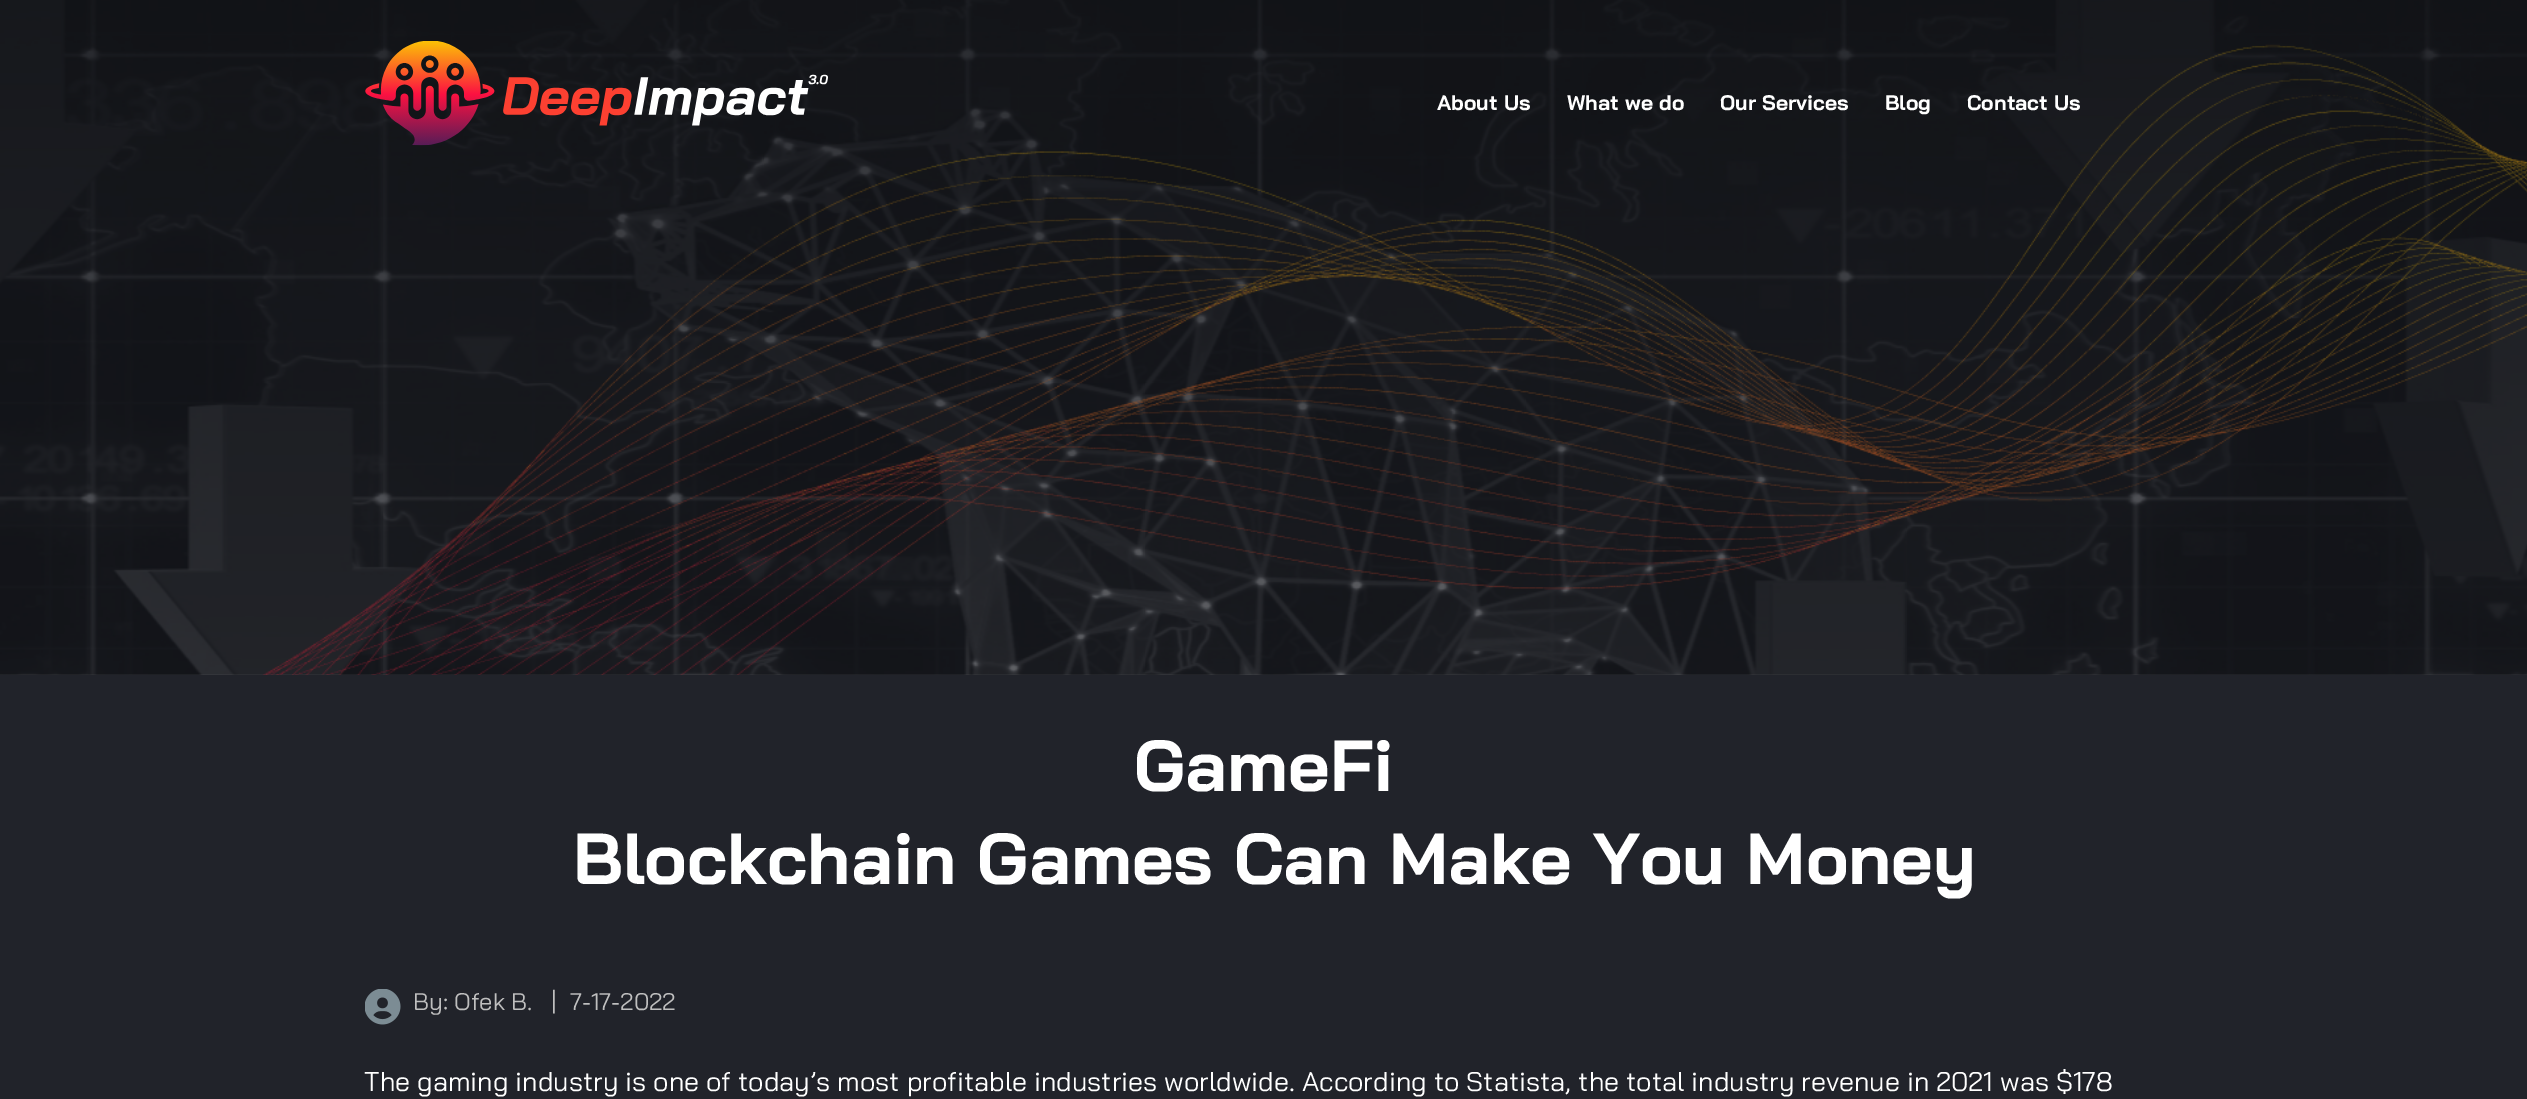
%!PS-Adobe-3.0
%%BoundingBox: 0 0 2527 1099
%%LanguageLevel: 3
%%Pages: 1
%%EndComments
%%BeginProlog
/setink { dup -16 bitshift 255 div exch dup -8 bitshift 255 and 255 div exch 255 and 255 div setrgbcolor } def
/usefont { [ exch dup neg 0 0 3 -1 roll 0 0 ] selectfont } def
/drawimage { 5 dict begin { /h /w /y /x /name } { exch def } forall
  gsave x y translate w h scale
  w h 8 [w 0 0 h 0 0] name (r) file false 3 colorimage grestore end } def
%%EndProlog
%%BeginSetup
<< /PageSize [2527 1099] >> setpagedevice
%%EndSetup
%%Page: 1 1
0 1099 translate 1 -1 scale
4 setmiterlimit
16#FFFFFF setink
0 0 2527 1099 rectfill
(img1.raw) 0 0 2527 675 drawimage
(img2.raw) 262 44 2265 631 drawimage
(img3.raw) 365 41 463 105 drawimage
/BaiJamjuree-Bold 21 usefont
[
    [(About Us) 1437 110]
    [(What we do) 1567 110]
    [(Our Services) 1720 110]
    [(Blog) 1885 110]
    [(Contact Us) 1967 110]
] { aload pop moveto show } forall
16#21232A setink
0 675 2527 424 rectfill
/BaiJamjuree-Bold 72 usefont
16#FFFFFF setink
1134 791 moveto (GameFi) show
573 884 moveto (Blockchain Games Can Make You Money) show
(img4.raw) 365 989 36 36 drawimage
/BaiJamjuree-Regular 24 usefont
16#BFBFBF setink
[
    [(By: Ofek B.) 413 1010]
    [(|) 551 1010]
    [(7-17-2022) 570 1010]
] { aload pop moveto show } forall
/BaiJamjuree-Regular 27 usefont
16#FFFFFF setink
364 1091 moveto (The gaming industry is one of today’s most profitable industries worldwide. According to Statista, the total industry revenue in 2021 was $178) show
showpage
%%EOF
